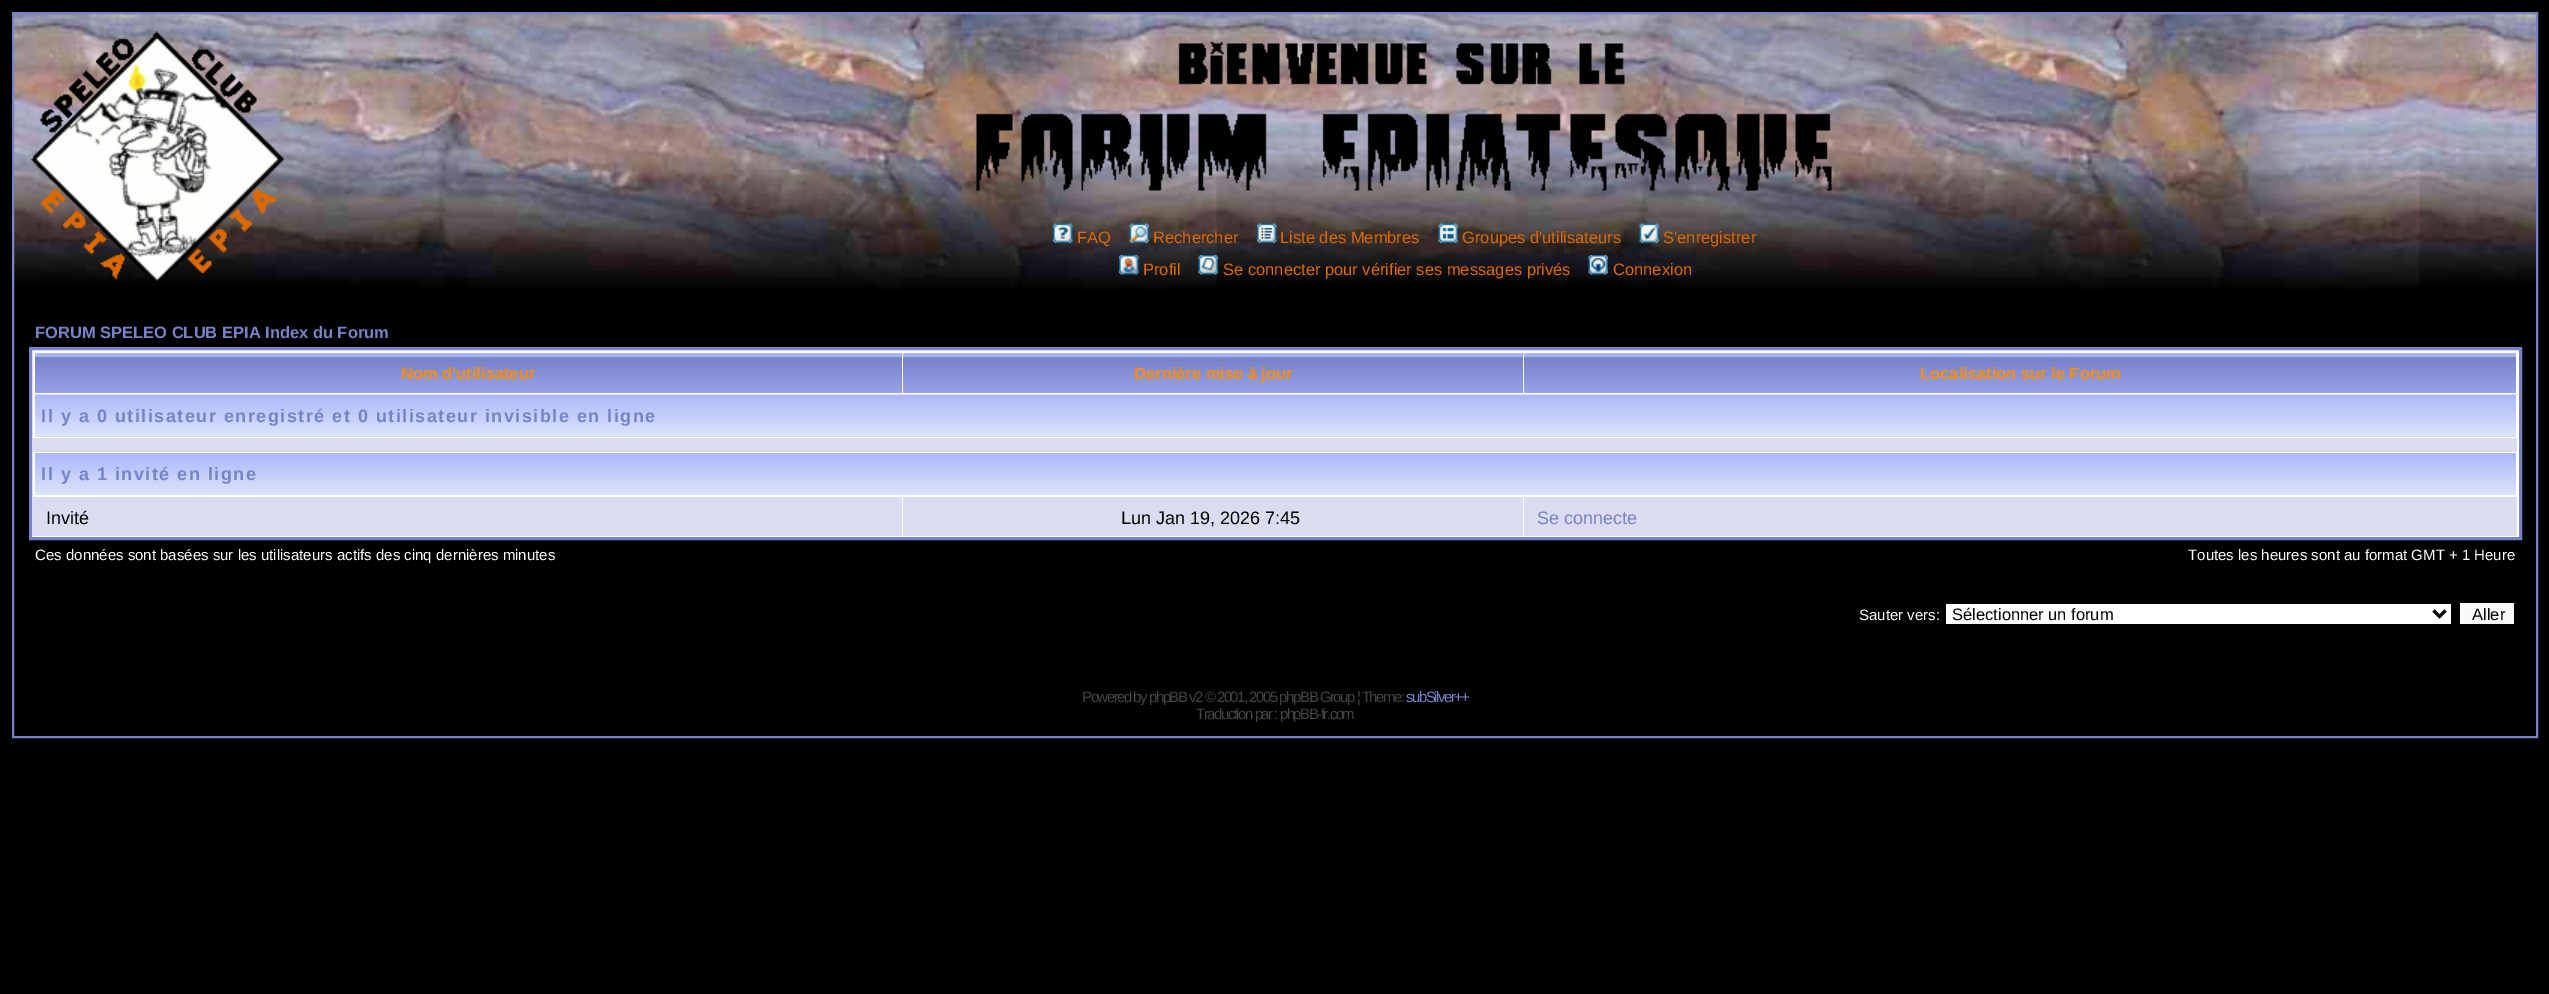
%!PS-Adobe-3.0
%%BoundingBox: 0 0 2549 994
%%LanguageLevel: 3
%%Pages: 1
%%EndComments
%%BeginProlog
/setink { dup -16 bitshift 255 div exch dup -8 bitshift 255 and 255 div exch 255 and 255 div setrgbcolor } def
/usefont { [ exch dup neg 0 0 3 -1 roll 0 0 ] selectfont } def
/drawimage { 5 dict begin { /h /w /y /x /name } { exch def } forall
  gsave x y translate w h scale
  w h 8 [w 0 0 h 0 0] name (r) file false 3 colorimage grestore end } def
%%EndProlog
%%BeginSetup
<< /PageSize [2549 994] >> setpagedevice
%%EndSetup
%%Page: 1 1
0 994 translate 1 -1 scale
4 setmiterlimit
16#000000 setink
0 0 2549 994 rectfill
(img1.raw) 14 14 2522 275 drawimage
16#7882C8 setink
2 setlinewidth
13 13 2524 724 rectstroke
(img2.raw) 31 31 253 251 drawimage
(img3.raw) 976 41 856 150 drawimage
(img4.raw) 1053 223 20 20 drawimage
/LiberationSans-Regular 16.5 usefont
16#DD6900 setink
1077 243 moveto (FAQ) show
(img5.raw) 1129 223 20 20 drawimage
1153 243 moveto (Rechercher) show
(img6.raw) 1257 223 20 20 drawimage
1280 243 moveto (Liste des Membres) show
(img7.raw) 1438 223 20 20 drawimage
1462 243 moveto (Groupes d'utilisateurs) show
(img8.raw) 1639 223 20 20 drawimage
1663 243 moveto (S'enregistrer) show
(img9.raw) 1119 255 20 20 drawimage
1143 275 moveto (Profil) show
(img10.raw) 1198 255 20 20 drawimage
1223 275 moveto (Se connecter pour vérifier ses messages privés) show
(img11.raw) 1588 255 20 20 drawimage
1613 275 moveto (Connexion) show
/LiberationSans-Bold 16.5 usefont
16#7882C8 setink
35 338 moveto (FORUM SPELEO CLUB EPIA Index du Forum) show
16#FFFFFF setink
30.5 348.5 moveto 2520.5 348.5 lineto 2520.5 538.5 lineto 30.5 538.5 lineto closepath gsave fill grestore
16#7882C8 setink
3 setlinewidth
stroke
901 353 1 40 rectfill
(img12.raw) 35 353 867 40 drawimage
16#FF8D00 setink
401 379 moveto (Nom d'utilisateur) show
16#7882C8 setink
1522 353 1 40 rectfill
(img13.raw) 903 353 620 40 drawimage
16#FF8D00 setink
1134 379 moveto (Dernière mise à jour) show
(img14.raw) 1524 353 992 40 drawimage
1920 379 moveto (Localisation sur le Forum) show
16#D1D7DC setink
35 436 2481 1 rectfill
(img15.raw) 33 394 2484 43 drawimage
16#FFFFFF setink
2516 395 1 42 rectfill
33 395 2 42 rectfill
/LiberationSans-Bold 18 usefont
16#7882C8 setink
41 422 moveto 1.5 0 (Il y a 0 utilisateur enregistré et 0 utilisateur invisible en ligne) ashow
16#DCDCF0 setink
33 438 2484 14 rectfill
(img16.raw) 35 453 2481 42 drawimage
16#7882C8 setink
41 480 moveto 1.5 0 (Il y a 1 invité en ligne) ashow
16#DCDCF0 setink
33 497 869 39 rectfill
/LiberationSans-Regular 18 usefont
16#000000 setink
46 524 moveto (Invité) show
16#DCDCF0 setink
903 497 620 39 rectfill
16#000000 setink
1121 524 moveto (Lun Jan 19, 2026 7:45) show
16#DCDCF0 setink
1524 497 993 39 rectfill
16#7882C8 setink
1537 524 moveto (Se connecte) show
/LiberationSans-Regular 15 usefont
16#FFFFFF setink
[
    [(Ces données sont basées sur les utilisateurs actifs des cinq dernières minutes) 35 560]
    [(Toutes les heures sont au format GMT + 1 Heure) 2188 560]
    [(Sauter vers:) 1859 620]
] { aload pop moveto show } forall
1946 604 505 20 rectfill
16#000000 setink
2433.5 610.5 moveto 2439.5 616.5 lineto 2445.5 610.5 lineto stroke
/LiberationSans-Regular 16.5 usefont
1952 620 moveto (Sélectionner un forum) show
16#FAFAFA setink
2460 603 54 21 rectfill
16#000000 setink
2472 620 moveto (Aller) show
/LiberationSans-Regular 15 usefont
16#444444 setink
1082 702 moveto -1.5 0 (Powered by phpBB v2 © 2001, 2005 phpBB Group ¦ Theme:) ashow
16#7882C8 setink
1406 702 moveto -1.5 0 (subSilver++) ashow
16#444444 setink
1196 719 moveto -1.5 0 (Traduction par : phpBB-fr.com) ashow
showpage
%%EOF
